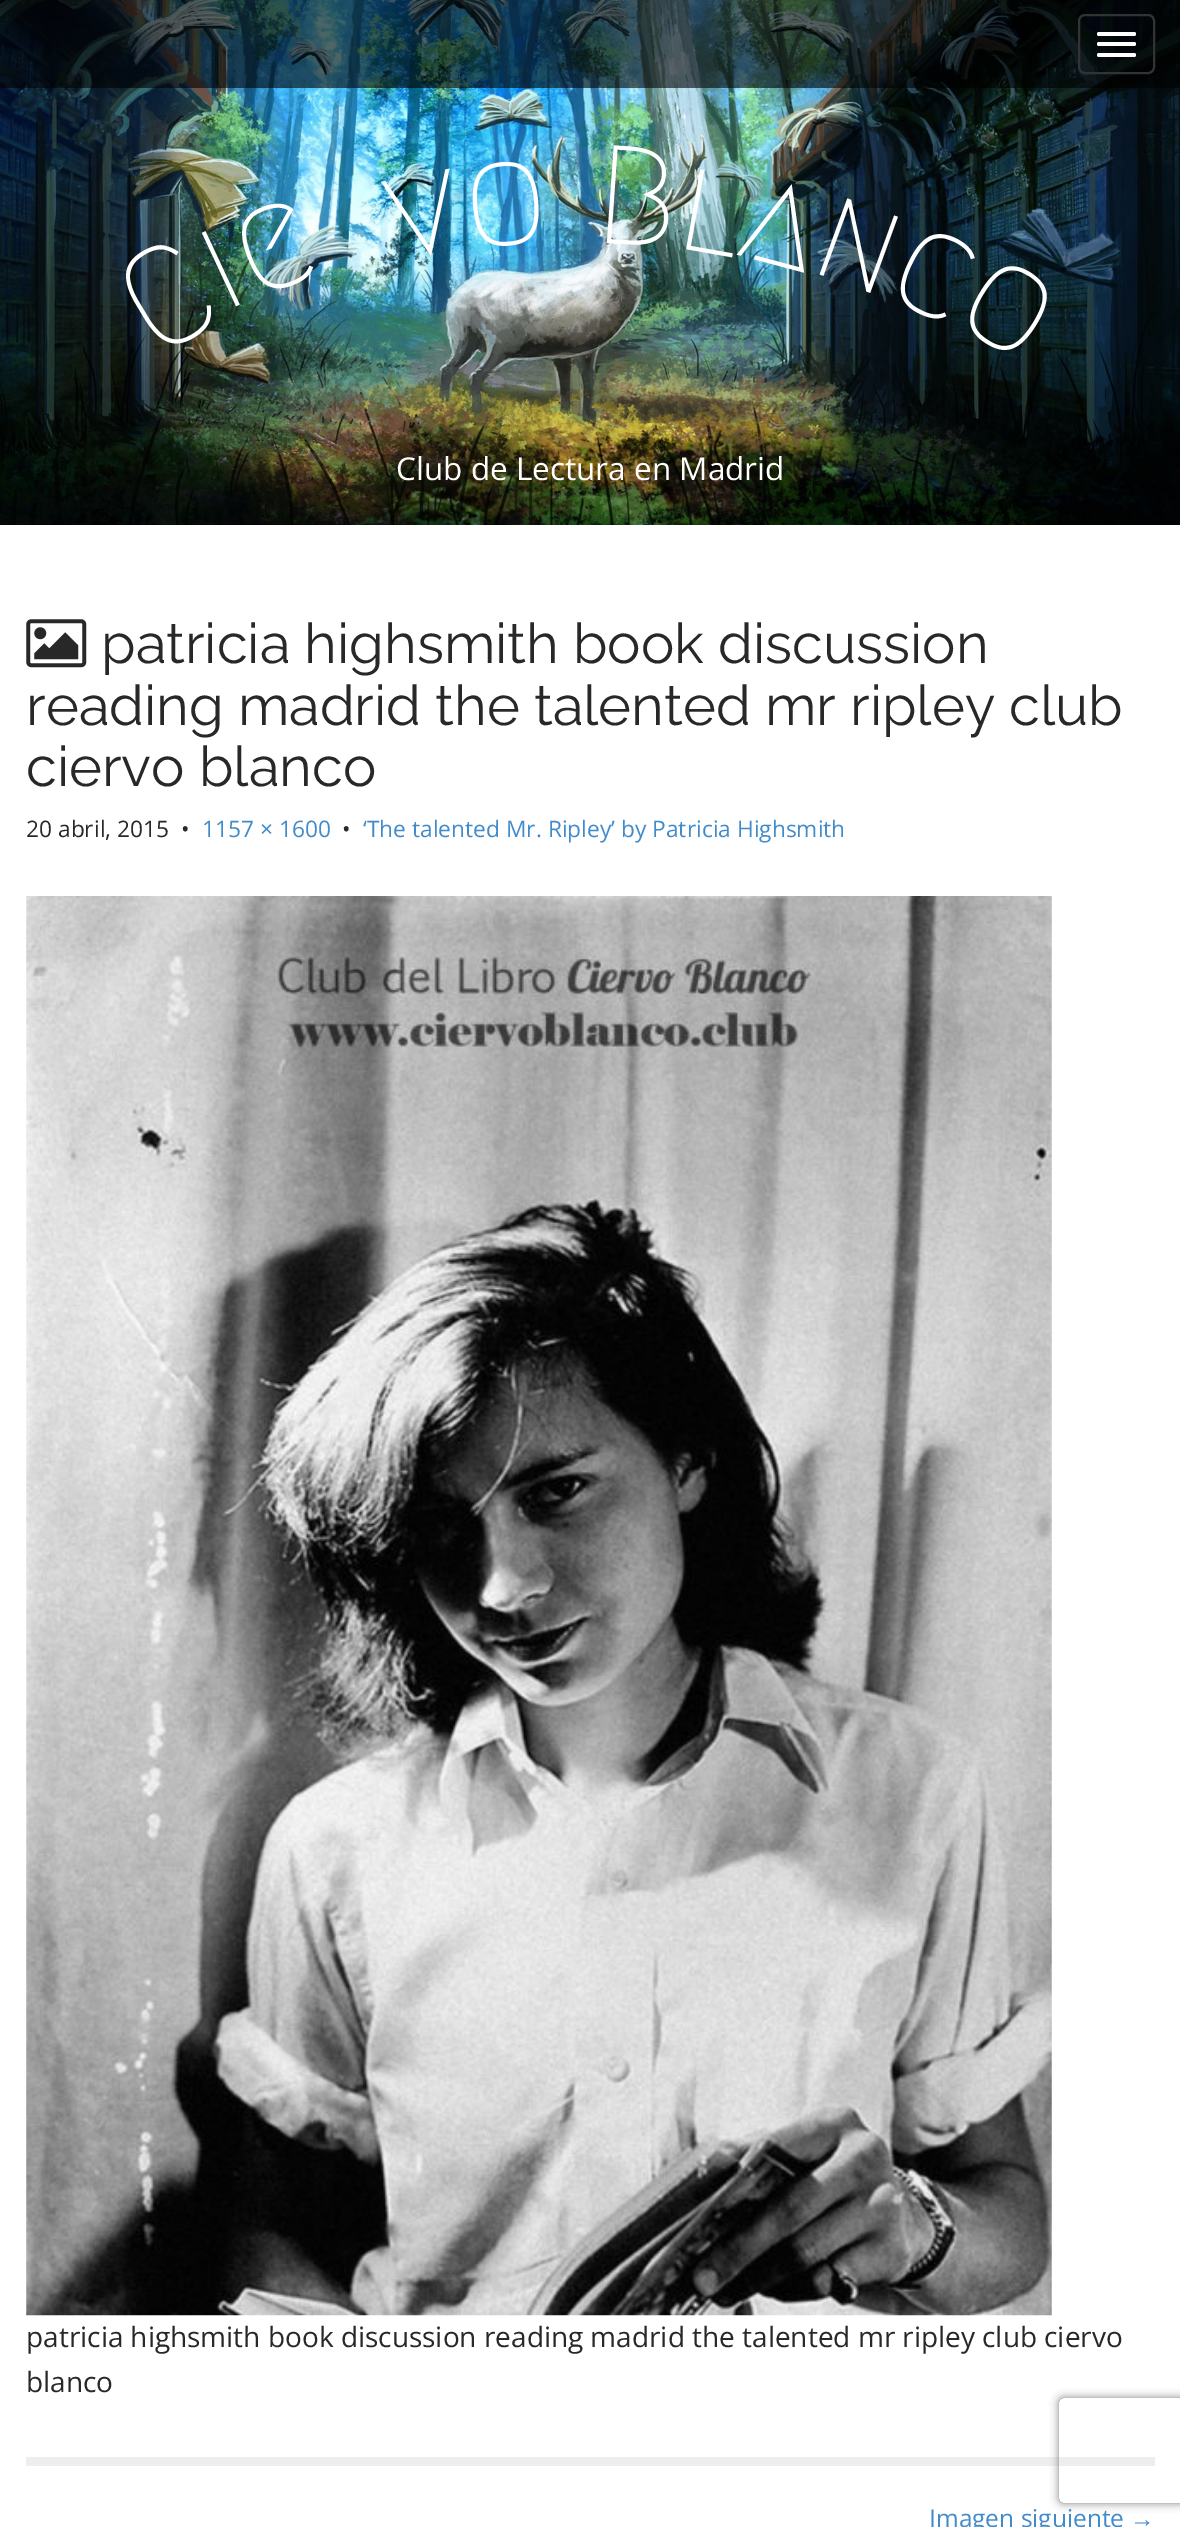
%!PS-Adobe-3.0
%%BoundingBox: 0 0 1180 2527
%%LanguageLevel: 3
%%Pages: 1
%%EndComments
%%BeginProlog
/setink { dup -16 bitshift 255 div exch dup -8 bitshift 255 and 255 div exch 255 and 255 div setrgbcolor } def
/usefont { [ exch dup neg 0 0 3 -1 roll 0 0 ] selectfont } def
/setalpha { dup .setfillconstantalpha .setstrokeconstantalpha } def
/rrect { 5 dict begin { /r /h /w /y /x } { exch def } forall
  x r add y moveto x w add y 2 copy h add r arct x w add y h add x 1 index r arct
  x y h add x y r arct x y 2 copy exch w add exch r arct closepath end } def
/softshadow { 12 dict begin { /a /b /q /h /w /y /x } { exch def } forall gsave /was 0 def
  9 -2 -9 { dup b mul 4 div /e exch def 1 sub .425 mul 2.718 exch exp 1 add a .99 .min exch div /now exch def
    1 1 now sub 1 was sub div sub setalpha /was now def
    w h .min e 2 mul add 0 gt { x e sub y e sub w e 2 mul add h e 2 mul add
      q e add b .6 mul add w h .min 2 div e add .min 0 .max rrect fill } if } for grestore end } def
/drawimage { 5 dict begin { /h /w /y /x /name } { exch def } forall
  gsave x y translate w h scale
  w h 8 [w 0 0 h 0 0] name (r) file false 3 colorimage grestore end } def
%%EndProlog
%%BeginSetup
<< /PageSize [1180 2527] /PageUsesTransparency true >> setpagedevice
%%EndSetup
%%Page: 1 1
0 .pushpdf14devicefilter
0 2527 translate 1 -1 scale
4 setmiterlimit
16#FFFFFF setink
0 0 1180 2527 rectfill
(img1.raw) 0 0 1180 525 drawimage
0.6 setalpha
16#000000 setink
0 0 1180 88 rectfill
1 setalpha
16#333333 setink
2 setlinewidth
1079 15 75 58 6 rrect stroke
16#FFFFFF setink
1097 32 39 4 2 rrect fill
1097 42 39 4 2 rrect fill
1097 53 39 4 2 rrect fill
/Megrim-Medium 140 usefont
gsave 156 359 translate -31 rotate 0 0 moveto (C) show grestore
gsave 224 312 translate -25 rotate 0 0 moveto (i) show grestore
gsave 253 299 translate -21 rotate 0 0 moveto (e) show grestore
gsave 394 262 translate -11 rotate 0 0 moveto (v) show grestore
gsave 467 248 translate -5 rotate 0 0 moveto (o) show grestore
gsave 593 242 translate 4 rotate 0 0 moveto (B) show grestore
gsave 673 247 translate 10 rotate 0 0 moveto (l) show grestore
gsave 734 254 translate 15 rotate 0 0 moveto (a) show grestore
gsave 807 270 translate 20 rotate 0 0 moveto (n) show grestore
gsave 882 294 translate 26 rotate 0 0 moveto (c) show grestore
gsave 951 320 translate 32 rotate 0 0 moveto (o) show grestore
/OpenSans-Regular 31.5 usefont
396 480 moveto (Club de Lectura en Madrid) show
16#EEEEEE setink
26 2457 1129 9 rectfill
(img2.raw) 26 619 61 49 drawimage
/Raleway-Thin 56 usefont
16#282828 setink
[
    [(patricia highsmith book discussion) 101 663]
    [(reading madrid the talented mr ripley club) 26 725]
    [(ciervo blanco) 26 786]
] { aload pop moveto show } forall
/OpenSans-Regular 22.75 usefont
26 837 moveto (20 abril, 2015) show
181 837 moveto (•) show
16#428BCA setink
202 837 moveto (1157 × 1600) show
16#282828 setink
342 837 moveto (•) show
16#428BCA setink
363 837 moveto (‘The talented Mr. Ripley’ by Patricia Highsmith) show
(img3.raw) 26 896 1026 1420 drawimage
/OpenSans-Regular 28 usefont
16#282828 setink
26 2347 moveto (patricia highsmith book discussion reading madrid the talented mr ripley club ciervo) show
26 2392 moveto (blanco) show
/OpenSans-Regular 24.5 usefont
16#428BCA setink
929 2527 moveto (Imagen siguiente) show
/LiberationSans-Regular 24.5 usefont
1130 2527 moveto (→) show
gsave
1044 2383 moveto 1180 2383 lineto 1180 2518 lineto 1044 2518 lineto closepath 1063 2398 moveto 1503 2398 lineto 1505 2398 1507 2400 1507 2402 curveto 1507 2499 lineto 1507 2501 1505 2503 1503 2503 curveto 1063 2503 lineto 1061 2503 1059 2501 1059 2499 curveto 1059 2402 lineto 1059 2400 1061 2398 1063 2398 curveto closepath eoclip newpath
16#808080 setink
1059 2398 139 105 4 4.5 1 softshadow
grestore
.poppdf14devicefilter showpage
%%EOF
